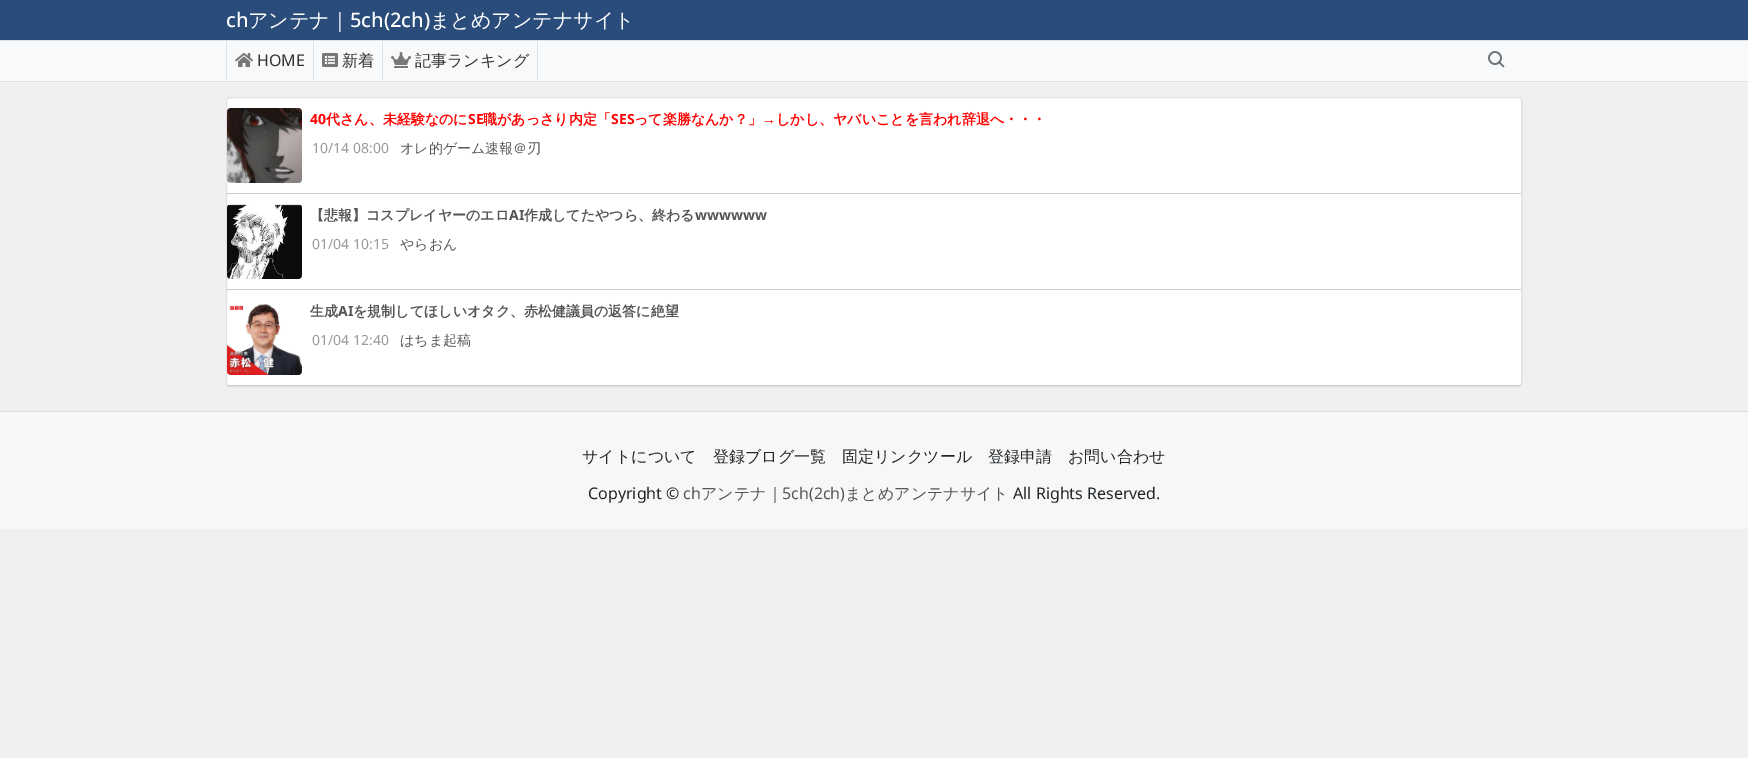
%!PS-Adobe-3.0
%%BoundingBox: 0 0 1748 758
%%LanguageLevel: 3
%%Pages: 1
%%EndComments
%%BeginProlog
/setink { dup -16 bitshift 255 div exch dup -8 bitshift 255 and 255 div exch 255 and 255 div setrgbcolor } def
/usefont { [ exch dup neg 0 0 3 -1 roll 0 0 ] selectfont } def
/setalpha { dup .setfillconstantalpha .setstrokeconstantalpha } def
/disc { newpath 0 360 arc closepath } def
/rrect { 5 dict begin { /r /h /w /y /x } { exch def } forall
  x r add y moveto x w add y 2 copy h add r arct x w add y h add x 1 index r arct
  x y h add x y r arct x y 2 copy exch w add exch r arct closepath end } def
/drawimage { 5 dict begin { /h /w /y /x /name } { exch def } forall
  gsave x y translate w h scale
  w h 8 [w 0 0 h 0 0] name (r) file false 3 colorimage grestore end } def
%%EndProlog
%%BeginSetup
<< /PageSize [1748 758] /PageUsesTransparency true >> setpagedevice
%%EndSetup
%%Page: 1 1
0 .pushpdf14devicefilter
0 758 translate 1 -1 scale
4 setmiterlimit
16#F0F0F0 setink
0 0 1748 758 rectfill
16#294C7A setink
0 0 1748 40 rectfill
16#DEE2E6 setink
0 40 1748 1 rectfill
/NotoSans-Medium 20 usefont
16#FFFFFF setink
226 27 moveto (ch) show
/WenQuanYiZenHei-Medium 20 usefont
248 27 moveto (アンテナ｜) show
/NotoSans-Medium 20 usefont
350 27 moveto (5ch\(2ch\)) show
/WenQuanYiZenHei-Medium 20 usefont
430 27 moveto (まとめアンテナサイト) show
[
    [0 41 1748 40 16#F8F9FA]
    [0 81 1748 1 16#DEE2E6]
    [313 41 1 39 16#DEE2E6]
    [226 41 1 39 16#DEE2E6]
] { aload pop setink rectfill } forall
(img1.raw) 235 53 18 14 drawimage
/NotoSans-Regular 16 usefont
16#333333 setink
257 66 moveto (HOME) show
16#DEE2E6 setink
382 41 1 39 rectfill
(img2.raw) 322 53 16 14 drawimage
/WenQuanYiZenHei-Medium 16 usefont
16#333333 setink
342 66 moveto (新着) show
16#DEE2E6 setink
537 41 1 39 rectfill
(img3.raw) 391 52 20 16 drawimage
16#333333 setink
415 66 moveto (記事ランキング) show
16#6C757D setink
1.7 setlinewidth
1495 58 6 disc stroke
1 setlinecap
1 setlinejoin
1503.5 66.5 moveto 1499 62 lineto stroke
16#FFFFFF setink
226 97 1296 290 4 rrect fill
0.12 setalpha
16#000000 setink
1 setlinewidth
0 setlinecap
0 setlinejoin
226.5 97.5 1295 289 3.5 rrect stroke
1 setalpha
16#CCCCCC setink
227 193 1294 1 rectfill
(img4.raw) 227 108 75 75 drawimage
/NotoSans-Bold 14 usefont
16#FF0000 setink
310 124 moveto (40) show
/WenQuanYiZenHei-Bold 14 usefont
326 124 moveto (代さん、未経験なのに) show
/NotoSans-Bold 14 usefont
468 124 moveto (SE) show
/WenQuanYiZenHei-Bold 14 usefont
483 124 moveto (職があっさり内定「) show
/NotoSans-Bold 14 usefont
611 124 moveto (SES) show
/WenQuanYiZenHei-Bold 14 usefont
634 124 moveto (って楽勝なんか？」) show
/LiberationSans-Bold 14 usefont
762 124 moveto (→) show
/WenQuanYiZenHei-Bold 14 usefont
776 124 moveto (しかし、ヤバいことを言われ辞退へ・・・) show
/NotoSans-Regular 14 usefont
16#999999 setink
312 153 moveto (10/14 08:00) show
/WenQuanYiZenHei-Medium 14 usefont
16#555555 setink
400 153 moveto (オレ的ゲーム速報＠刃) show
16#CCCCCC setink
227 289 1294 1 rectfill
(img5.raw) 227 204 75 75 drawimage
/WenQuanYiZenHei-Bold 14 usefont
16#555555 setink
310 220 moveto (【悲報】コスプレイヤーのエロ) show
/NotoSans-Bold 14 usefont
509 220 moveto (AI) show
/WenQuanYiZenHei-Bold 14 usefont
524 220 moveto (作成してたやつら、終わる) show
/NotoSans-Bold 14 usefont
695 220 moveto (wwwwww) show
/NotoSans-Regular 14 usefont
16#999999 setink
312 249 moveto (01/04 10:15) show
/WenQuanYiZenHei-Medium 14 usefont
16#555555 setink
400 249 moveto (やらおん) show
16#CCCCCC setink
227 385 1294 1 rectfill
(img6.raw) 227 304 75 71 drawimage
/WenQuanYiZenHei-Bold 14 usefont
16#555555 setink
310 316 moveto (生成) show
/NotoSans-Bold 14 usefont
338 316 moveto (AI) show
/WenQuanYiZenHei-Bold 14 usefont
353 316 moveto (を規制してほしいオタク、赤松健議員の返答に絶望) show
/NotoSans-Regular 14 usefont
16#999999 setink
312 345 moveto (01/04 12:40) show
/WenQuanYiZenHei-Medium 14 usefont
16#555555 setink
400 345 moveto (はちま起稿) show
16#F7F7F7 setink
0 412 1748 117 rectfill
16#DDDDDD setink
0 411 1748 1 rectfill
/WenQuanYiZenHei-Medium 16 usefont
16#212529 setink
[
    [(サイトについて) 582 462]
    [(登録ブログ一覧) 713 462]
    [(固定リンクツール) 842 462]
    [(登録申請) 988 462]
    [(お問い合わせ) 1068 462]
] { aload pop moveto show } forall
/NotoSans-Regular 16 usefont
588 499 moveto (Copyright ©) show
16#555555 setink
683 499 moveto (ch) show
/WenQuanYiZenHei-Medium 16 usefont
701 499 moveto (アンテナ｜) show
/NotoSans-Regular 16 usefont
782 499 moveto (5ch\(2ch\)) show
/WenQuanYiZenHei-Medium 16 usefont
845 499 moveto (まとめアンテナサイト) show
/NotoSans-Regular 16 usefont
16#212529 setink
1013 499 moveto (All Rights Reserved.) show
.poppdf14devicefilter showpage
%%EOF
